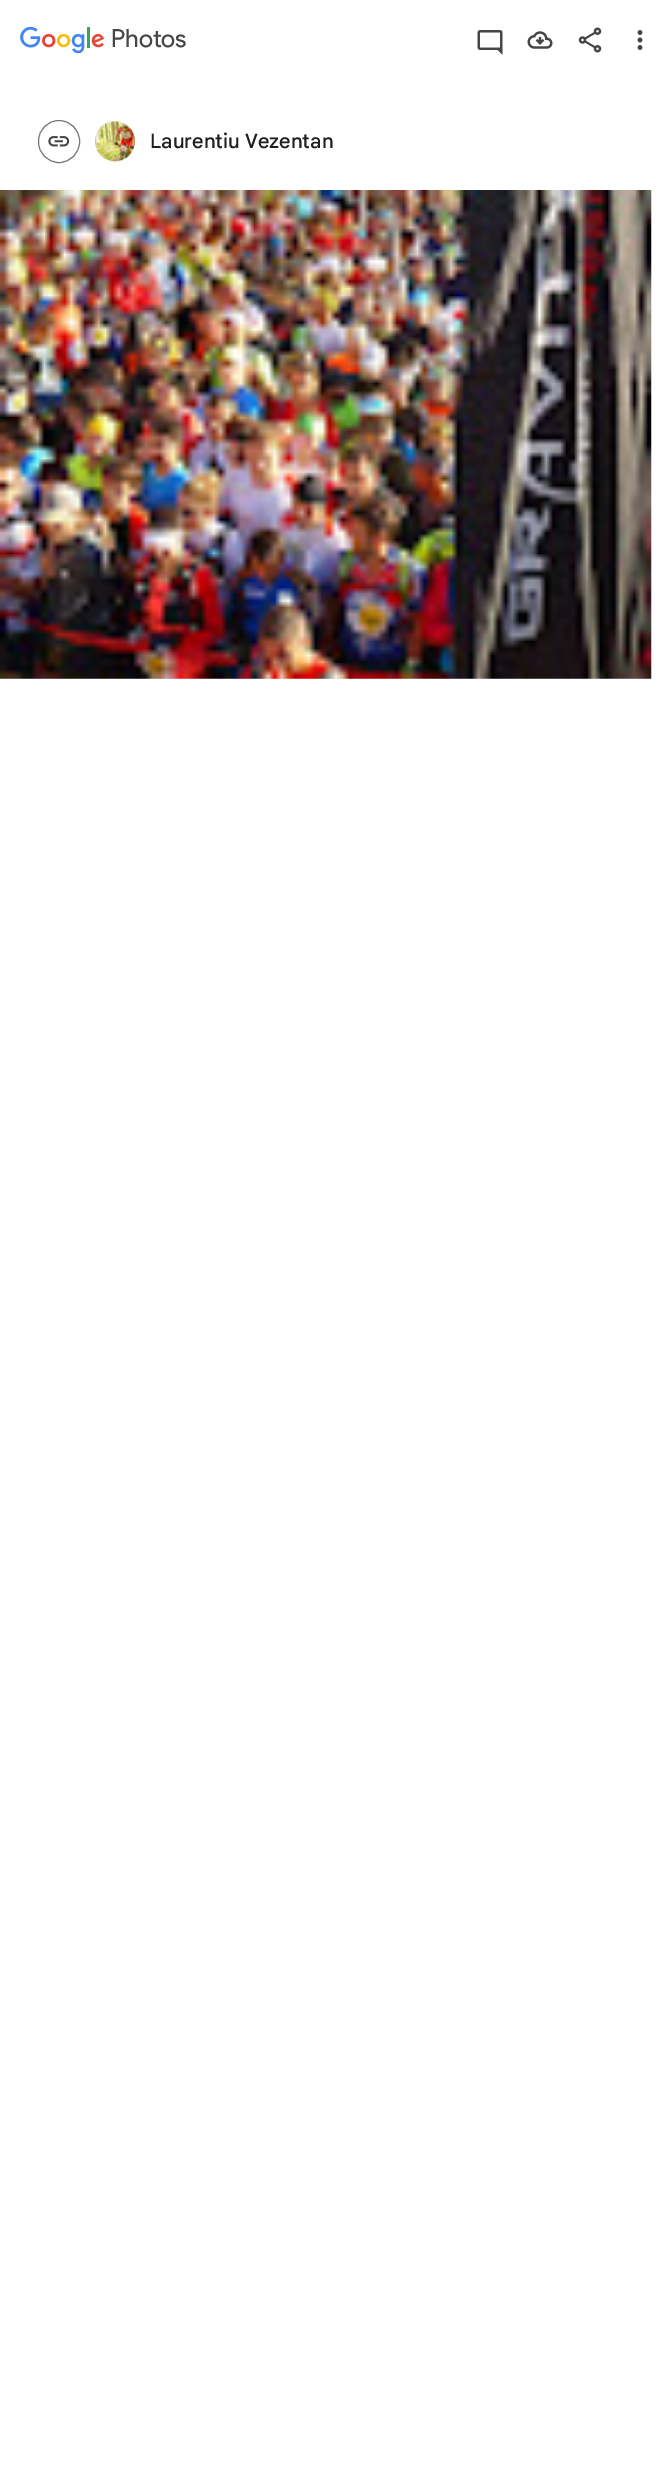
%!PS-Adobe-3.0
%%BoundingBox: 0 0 670 2476
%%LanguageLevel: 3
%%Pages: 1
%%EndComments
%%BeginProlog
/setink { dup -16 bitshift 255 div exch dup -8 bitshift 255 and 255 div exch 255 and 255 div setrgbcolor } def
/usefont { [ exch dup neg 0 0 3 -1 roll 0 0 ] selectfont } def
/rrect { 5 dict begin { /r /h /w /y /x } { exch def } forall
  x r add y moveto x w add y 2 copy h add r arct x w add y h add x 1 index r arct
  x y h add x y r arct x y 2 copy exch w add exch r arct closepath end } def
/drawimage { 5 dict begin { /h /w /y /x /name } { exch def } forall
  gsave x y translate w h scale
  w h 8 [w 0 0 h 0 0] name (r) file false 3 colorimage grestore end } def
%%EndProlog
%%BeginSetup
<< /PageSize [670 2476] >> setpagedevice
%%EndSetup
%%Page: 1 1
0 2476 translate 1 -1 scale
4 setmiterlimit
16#FFFFFF setink
0 0 670 2476 rectfill
(img1.raw) 20 26 84 28 drawimage
/ProductSans-Regular 25 usefont
16#444746 setink
111 47 moveto (Photos) show
(img2.raw) 477 30 26 25 drawimage
(img3.raw) 527 31 26 18 drawimage
(img4.raw) 578 27 24 26 drawimage
(img5.raw) 637 30 6 20 drawimage
16#747775 setink
38.5 120.5 41 42 20.5 rrect stroke
(img6.raw) 48 136 22 11 drawimage
(img7.raw) 95 121 40 41 drawimage
/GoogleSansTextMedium-Medium 20 usefont
16#1F1F1F setink
150 148 moveto (Laurentiu Vezentan) show
(img8.raw) 0 190 652 489 drawimage
showpage
%%EOF
